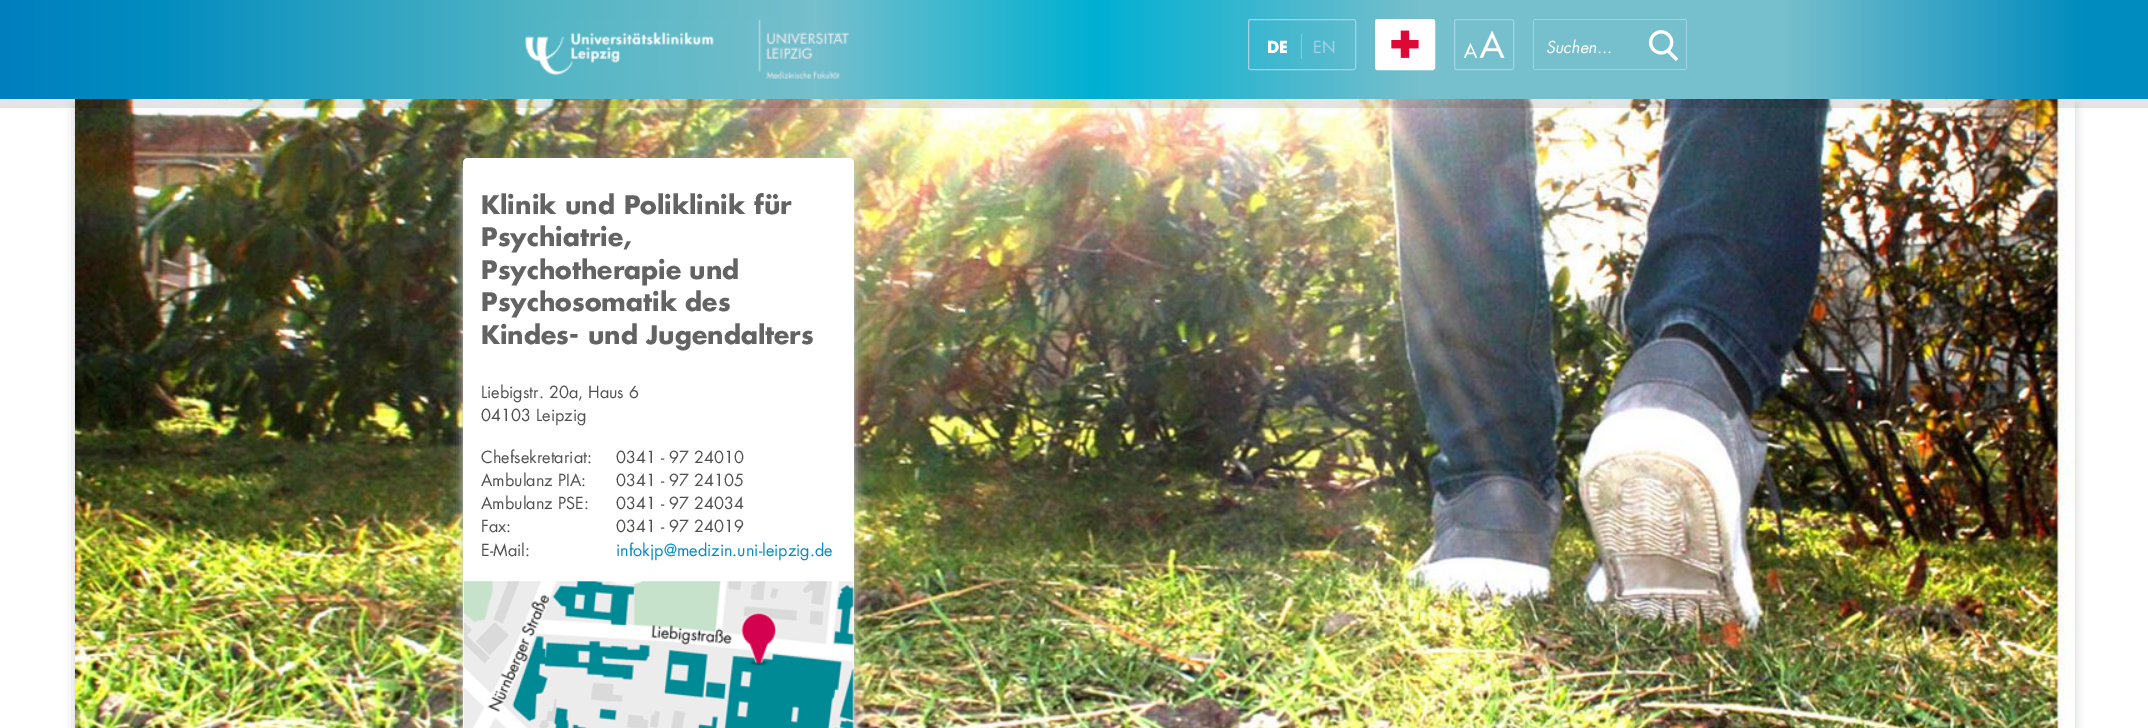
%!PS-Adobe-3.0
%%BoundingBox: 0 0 2148 728
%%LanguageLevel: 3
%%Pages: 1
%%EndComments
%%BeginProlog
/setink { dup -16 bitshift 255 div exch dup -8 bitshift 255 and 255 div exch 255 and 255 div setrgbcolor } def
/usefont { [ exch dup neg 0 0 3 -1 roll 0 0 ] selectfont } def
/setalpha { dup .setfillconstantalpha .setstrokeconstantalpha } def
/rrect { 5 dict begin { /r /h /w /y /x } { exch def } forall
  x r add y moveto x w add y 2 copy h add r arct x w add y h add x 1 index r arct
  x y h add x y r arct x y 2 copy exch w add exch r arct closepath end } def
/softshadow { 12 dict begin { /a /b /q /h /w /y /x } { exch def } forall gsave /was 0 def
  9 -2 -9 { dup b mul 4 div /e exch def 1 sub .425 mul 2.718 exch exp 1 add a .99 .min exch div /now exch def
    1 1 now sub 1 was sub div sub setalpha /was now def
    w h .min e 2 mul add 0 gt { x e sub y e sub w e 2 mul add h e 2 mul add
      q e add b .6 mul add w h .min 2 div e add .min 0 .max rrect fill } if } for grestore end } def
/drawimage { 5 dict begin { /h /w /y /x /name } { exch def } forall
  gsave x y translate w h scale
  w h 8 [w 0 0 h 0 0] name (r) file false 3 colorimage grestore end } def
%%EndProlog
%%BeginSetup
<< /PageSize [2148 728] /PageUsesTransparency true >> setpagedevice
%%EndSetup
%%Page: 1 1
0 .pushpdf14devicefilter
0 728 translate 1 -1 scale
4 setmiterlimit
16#FFFFFF setink
0 0 2148 728 rectfill
16#D0D0D0 setink
75 105 2000 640 0 5.5 1 softshadow
(img5.raw) 75 99 2000 629 drawimage
0.1 setalpha
16#000000 setink
0 99 moveto 0 108 lineto 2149 108 lineto 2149 9 lineto 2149 99 lineto closepath fill
1 setalpha
gsave 0 0 moveto 2148 0 lineto 2148 99 lineto 0 99 lineto closepath clip newpath
<< /ShadingType 2 /ColorSpace /DeviceRGB /Coords [0 49 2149 49] /Extend [true true] /Function << /FunctionType 3 /Domain [0 1] /Functions [<< /FunctionType 2 /Domain [0 1] /C0 [0 0.498 0.749] /C1 [0 0.549 0.749] /N 1 >> << /FunctionType 2 /Domain [0 1] /C0 [0 0.549 0.749] /C1 [0.322 0.71 0.769] /N 1 >> << /FunctionType 2 /Domain [0 1] /C0 [0.322 0.71 0.769] /C1 [0.463 0.749 0.8] /N 1 >> << /FunctionType 2 /Domain [0 1] /C0 [0.463 0.749 0.8] /C1 [0 0.69 0.827] /N 1 >> << /FunctionType 2 /Domain [0 1] /C0 [0 0.69 0.827] /C1 [0.463 0.749 0.8] /N 1 >> << /FunctionType 2 /Domain [0 1] /C0 [0.463 0.749 0.8] /C1 [0.463 0.749 0.8] /N 1 >> << /FunctionType 2 /Domain [0 1] /C0 [0.463 0.749 0.8] /C1 [0 0.549 0.749] /N 1 >> << /FunctionType 2 /Domain [0 1] /C0 [0 0.549 0.749] /C1 [0 0.549 0.749] /N 1 >>] /Bounds [0.07 0.25 0.38 0.51 0.66 0.83 0.97] /Encode [0 1 0 1 0 1 0 1 0 1 0 1 0 1 0 1] >> >> shfill grestore
(img1.raw) 525 19 324 60 drawimage
16#A2D1E8 setink
1248.5 19.5 107 50 2 rrect stroke
/Futura-Bold 16.25 usefont
16#FFFFFF setink
1267 53 moveto (DE) show
16#8FC7E3 setink
1301 34 1 25 rectfill
/Futura-Regular 16.25 usefont
16#A2D1E8 setink
1313 53 moveto (EN) show
16#FFFFFF setink
1375.5 19.5 59 50 2 rrect stroke
1376 20 58 49 rectfill
(img2.raw) 1391 30 28 28 drawimage
16#A2D1E8 setink
1454.5 19.5 59 50 2 rrect stroke
(img3.raw) 1463 30 42 28 drawimage
[
    [1534 19 152 1 16#A2D1E8]
    [1534 69 152 1 16#A2D1E8]
    [1533 20 1 49 16#A2D1E8]
] { aload pop setink rectfill } forall
/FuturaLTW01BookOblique-Regular 16.25 usefont
16#FFFFFF setink
1546 53 moveto (Suchen...) show
16#A2D1E8 setink
1686 20 1 49 rectfill
(img4.raw) 1648 30 31 32 drawimage
16#D0D0D0 setink
463 165 391 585 5 5.5 1 softshadow
16#FFFFFF setink
468 158 moveto 849 158 lineto 852 158 854 160 854 163 curveto 854 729 lineto 463 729 lineto 463 163 lineto 463 160 465 158 468 158 curveto closepath fill
/Futura-Bold 25 usefont
16#636363 setink
[
    [(Klinik und Poliklinik für) 481 214]
    [(Psychiatrie,) 481 246]
    [(Psychotherapie und) 481 279]
    [(Psychosomatik des) 481 311]
    [(Kindes- und Jugendalters) 481 344]
] { aload pop moveto show } forall
/Futura-Regular 16.25 usefont
16#505050 setink
[
    [(Liebigstr. 20a, Haus 6) 481 398]
    [(04103 Leipzig) 481 421]
    [(Chefsekretariat:) 481 463]
    [(0341 - 97 24010) 616 463]
    [(Ambulanz PIA:) 481 486]
    [(0341 - 97 24105) 616 486]
    [(Ambulanz PSE:) 481 509]
    [(0341 - 97 24034) 616 509]
    [(Fax:) 481 532]
    [(0341 - 97 24019) 616 532]
    [(E-Mail:) 481 556]
] { aload pop moveto show } forall
16#008AC9 setink
616 556 moveto (infokjp@medizin.uni-leipzig.de) show
(img6.raw) 462 580 392 148 drawimage
.poppdf14devicefilter showpage
%%EOF
